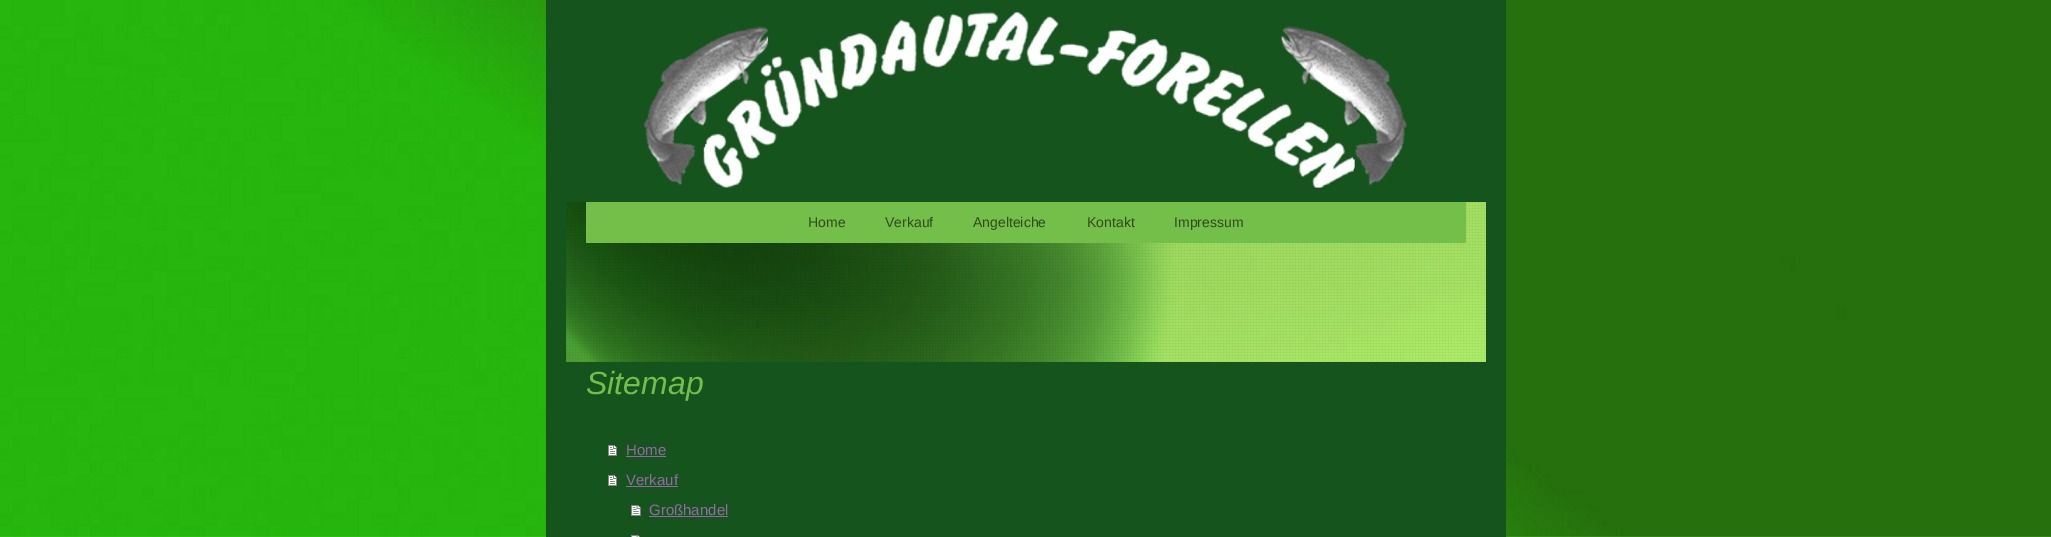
%!PS-Adobe-3.0
%%BoundingBox: 0 0 2051 537
%%LanguageLevel: 3
%%Pages: 1
%%EndComments
%%BeginProlog
/setink { dup -16 bitshift 255 div exch dup -8 bitshift 255 and 255 div exch 255 and 255 div setrgbcolor } def
/usefont { [ exch dup neg 0 0 3 -1 roll 0 0 ] selectfont } def
/drawimage { 5 dict begin { /h /w /y /x /name } { exch def } forall
  gsave x y translate w h scale
  w h 8 [w 0 0 h 0 0] name (r) file false 3 colorimage grestore end } def
%%EndProlog
%%BeginSetup
<< /PageSize [2051 537] >> setpagedevice
%%EndSetup
%%Page: 1 1
0 537 translate 1 -1 scale
4 setmiterlimit
16#FFFFFF setink
0 0 2051 537 rectfill
(img1.raw) 0 0 2051 537 drawimage
16#16541E setink
546 0 960 537 rectfill
(img2.raw) 643 11 764 178 drawimage
(img3.raw) 566 202 920 160 drawimage
(img4.raw) 566 202 920 160 drawimage
16#73BF4A setink
586 202 880 41 rectfill
/LiberationSans-Regular 14 usefont
16#2D4D1C setink
[
    [(Home) 808 227]
    [(Verkauf) 885 227]
    [(Angelteiche) 973 227]
    [(Kontakt) 1087 227]
    [(Impressum) 1174 227]
] { aload pop moveto show } forall
/LiberationSans-Italic 32 usefont
16#73BF4A setink
586 394 moveto (Sitemap) show
(img5.raw) 608 445 9 11 drawimage
/LiberationSans-Regular 15 usefont
16#9568A7 setink
626 455 moveto (Home) show
626 456 40 1 rectfill
(img5.raw) 608 475 9 11 drawimage
626 485 moveto (Verkauf) show
626 486 52 1 rectfill
(img6.raw) 631 505 10 11 drawimage
649 515 moveto (Großhandel) show
649 516 79 1 rectfill
(img7.raw) 631 535 9 2 drawimage
showpage
%%EOF
